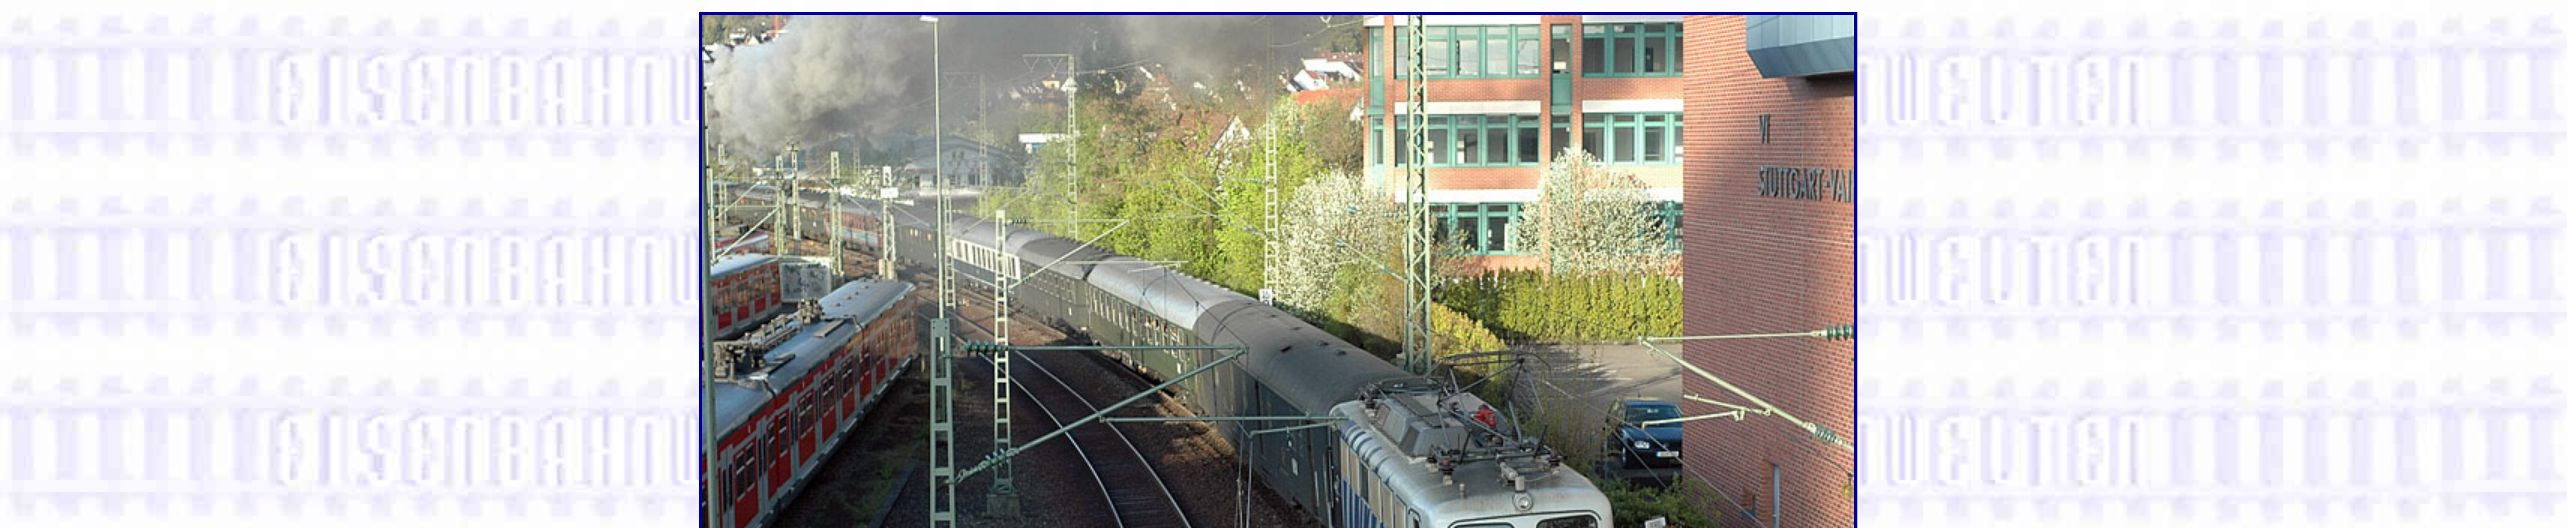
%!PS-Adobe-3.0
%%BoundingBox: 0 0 2567 528
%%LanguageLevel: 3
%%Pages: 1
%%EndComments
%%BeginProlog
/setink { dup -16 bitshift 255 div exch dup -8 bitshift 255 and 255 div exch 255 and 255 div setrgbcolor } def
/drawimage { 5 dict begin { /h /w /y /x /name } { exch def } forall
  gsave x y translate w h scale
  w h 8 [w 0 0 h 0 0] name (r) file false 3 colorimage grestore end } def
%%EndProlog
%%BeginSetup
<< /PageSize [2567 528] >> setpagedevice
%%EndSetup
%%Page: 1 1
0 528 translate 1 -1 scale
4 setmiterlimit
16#FFFFFF setink
0 0 2567 528 rectfill
(img1.raw) 0 0 2567 528 drawimage
16#000099 setink
3 setlinewidth
700.5 13.5 1155 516 rectstroke
(img2.raw) 702 15 1152 513 drawimage
showpage
%%EOF
